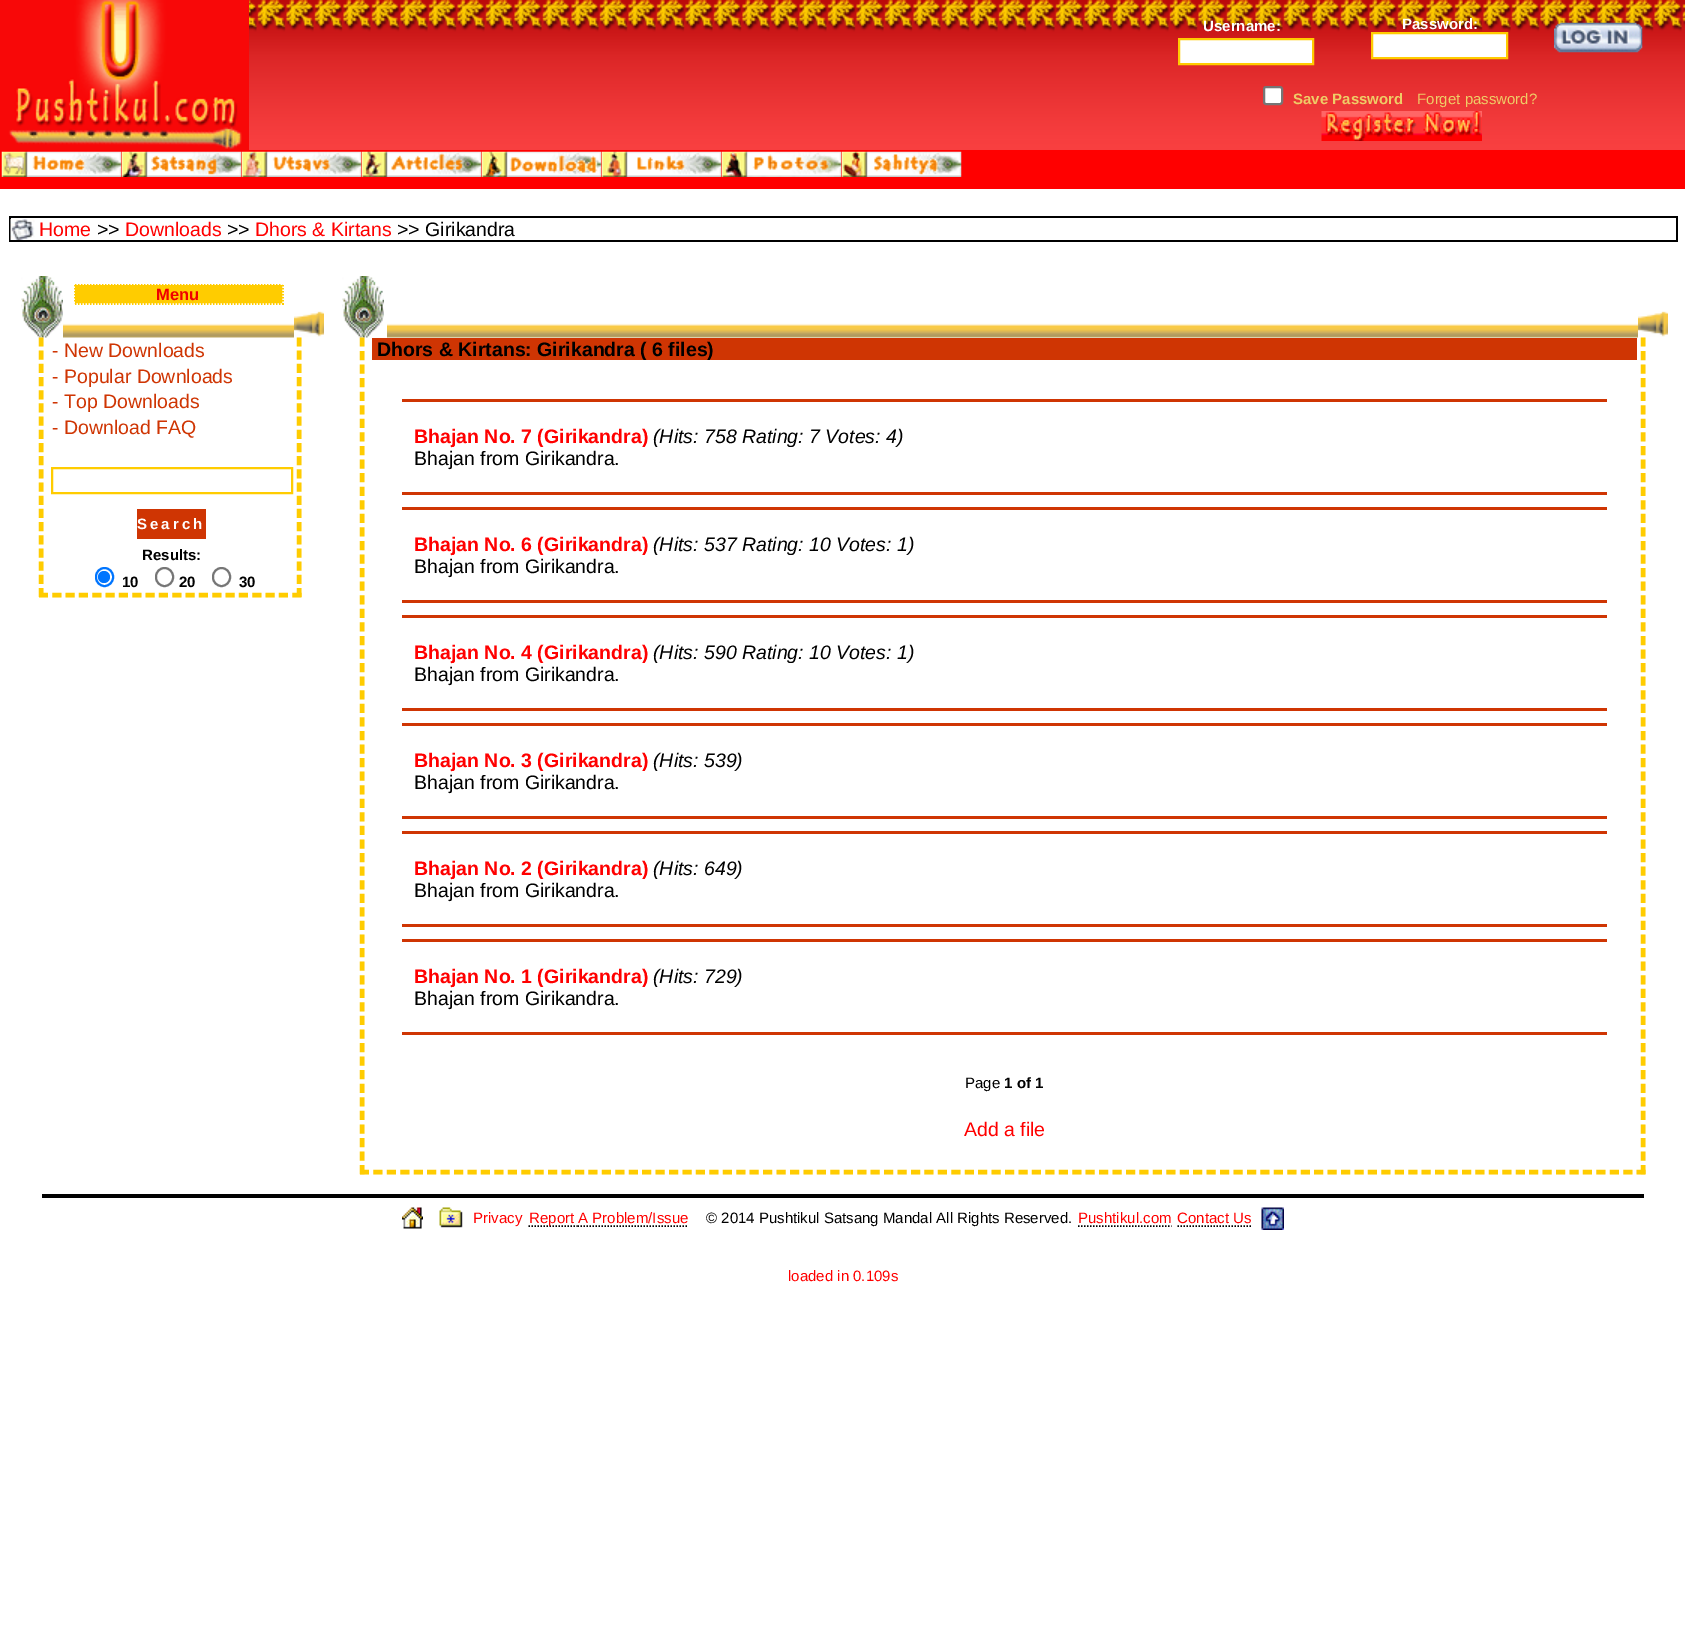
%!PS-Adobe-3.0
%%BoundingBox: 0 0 1685 1632
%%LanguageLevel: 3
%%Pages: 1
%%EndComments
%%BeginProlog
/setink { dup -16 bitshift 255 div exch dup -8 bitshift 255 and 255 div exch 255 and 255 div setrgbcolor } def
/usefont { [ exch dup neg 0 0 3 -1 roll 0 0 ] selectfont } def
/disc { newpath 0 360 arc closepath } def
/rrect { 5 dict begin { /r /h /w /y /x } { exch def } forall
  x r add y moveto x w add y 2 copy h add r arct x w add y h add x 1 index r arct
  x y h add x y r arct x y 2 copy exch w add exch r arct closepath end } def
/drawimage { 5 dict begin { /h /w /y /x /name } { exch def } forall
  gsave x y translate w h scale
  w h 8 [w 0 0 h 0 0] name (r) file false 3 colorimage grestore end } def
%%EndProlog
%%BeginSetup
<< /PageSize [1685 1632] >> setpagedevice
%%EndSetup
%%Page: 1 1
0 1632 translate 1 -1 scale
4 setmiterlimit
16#FFFFFF setink
0 0 1685 1632 rectfill
(img1.raw) 249 0 1436 150 drawimage
(img2.raw) 0 0 249 150 drawimage
/LiberationSans-Bold 15 usefont
1203 31 moveto (Username:) show
1179 39 moveto 1313 39 lineto 1313 64 lineto 1179 64 lineto closepath gsave fill grestore
16#FFCC00 setink
2 setlinewidth
stroke
16#FFFFFF setink
1402 29 moveto (Password:) show
1372 33 moveto 1507 33 lineto 1507 58 lineto 1372 58 lineto closepath gsave fill grestore
16#FFCC00 setink
stroke
(img3.raw) 1554 22 89 31 drawimage
16#FFFFFF setink
1264 87 18 17 2 rrect gsave fill grestore
16#767676 setink
stroke
16#EFCC66 setink
1293 104 moveto (Save Password) show
/LiberationSans-Regular 15 usefont
1417 104 moveto (Forget password?) show
(img4.raw) 1321 111 161 30 drawimage
[
    [0 150 1685 39 16#FF0000]
    [9 216 1668 2 16#000000]
    [1676 216 2 26 16#000000]
    [9 240 1668 2 16#000000]
    [9 216 2 26 16#000000]
] { aload pop setink rectfill } forall
(img5.raw) 10 219 25 21 drawimage
/LiberationSans-Regular 19.5 usefont
16#FF0000 setink
39 236 moveto (Home) show
16#000000 setink
97 236 moveto (>>) show
16#FF0000 setink
125 236 moveto (Downloads) show
16#000000 setink
227 236 moveto (>>) show
16#FF0000 setink
255 236 moveto (Dhors & Kirtans) show
16#000000 setink
397 236 moveto (>> Girikandra) show
(img6.raw) 294 311 30 26 drawimage
(img7.raw) 21 276 42 62 drawimage
(img8.raw) 63 323 231 15 drawimage
16#FFCC00 setink
74 284 210 21 rectfill
16#FFFFFF setink
1.5 setlinewidth
[1.5 1.5] 0 setdash
73.5 284 moveto 283.5 284 lineto stroke
283 283.5 moveto 283 304.5 lineto stroke
73.5 304 moveto 283.5 304 lineto stroke
74 283.5 moveto 74 304.5 lineto stroke
/LiberationSans-Bold 16.5 usefont
16#F00000 setink
156 300 moveto (Menu) show
16#FFCC00 setink
4.5 setlinewidth
[9 4.19] 0 setdash
299 337.5 moveto 299 597 lineto stroke
[9 4.33] 0 setdash
39 595 moveto 301.5 595 lineto stroke
[9 4.19] 0 setdash
41 337.5 moveto 41 597 lineto stroke
/LiberationSans-Regular 19.5 usefont
16#CF3503 setink
[
    [(- New Downloads) 52 357]
    [(- Popular Downloads) 52 383]
    [(- Top Downloads) 52 408]
    [(- Download FAQ) 52 434]
] { aload pop moveto show } forall
16#FFCC00 setink
2 setlinewidth
[] 0 setdash
52 468 240 25 rectstroke
16#CF3503 setink
137 509 69 30 rectfill
/LiberationSans-Bold 15 usefont
16#FFFFFF setink
137 529 moveto 3 0 (Search) ashow
16#000000 setink
142 560 moveto (Results:) show
16#0075FF setink
96 568 17 18 8.5 rrect stroke
104 577 6 disc fill
16#000000 setink
122 587 moveto (10) show
16#767676 setink
156 568 17 18 8.5 rrect stroke
16#000000 setink
179 587 moveto (20) show
16#767676 setink
213 568 17 18 8.5 rrect stroke
16#000000 setink
239 587 moveto (30) show
(img9.raw) 1638 311 30 26 drawimage
(img10.raw) 342 276 42 62 drawimage
(img11.raw) 387 323 1251 15 drawimage
16#FFCC00 setink
4.5 setlinewidth
[9 4.57] 0 setdash
1643 337.5 moveto 1643 1174.5 lineto stroke
[9 4.44] 0 setdash
360 1172 moveto 1645.5 1172 lineto stroke
[9 4.57] 0 setdash
362 337.5 moveto 362 1174.5 lineto stroke
16#CF3503 setink
372 338 1265 22 rectfill
/LiberationSans-Bold 19.5 usefont
16#000000 setink
377 356 moveto (Dhors & Kirtans: Girikandra \( 6 files\)) show
16#CF3503 setink
402 399 1205 3 rectfill
16#FF0000 setink
414 443 moveto (Bhajan No. 7 \(Girikandra\)) show
/LiberationSans-Italic 19.5 usefont
16#000000 setink
653 443 moveto (\(Hits: 758 Rating: 7 Votes: 4\)) show
/LiberationSans-Regular 19.5 usefont
414 465 moveto (Bhajan from Girikandra.) show
16#CF3503 setink
402 492 1205 3 rectfill
402 507 1205 3 rectfill
/LiberationSans-Bold 19.5 usefont
16#FF0000 setink
414 551 moveto (Bhajan No. 6 \(Girikandra\)) show
/LiberationSans-Italic 19.5 usefont
16#000000 setink
653 551 moveto (\(Hits: 537 Rating: 10 Votes: 1\)) show
/LiberationSans-Regular 19.5 usefont
414 573 moveto (Bhajan from Girikandra.) show
16#CF3503 setink
402 600 1205 3 rectfill
402 615 1205 3 rectfill
/LiberationSans-Bold 19.5 usefont
16#FF0000 setink
414 659 moveto (Bhajan No. 4 \(Girikandra\)) show
/LiberationSans-Italic 19.5 usefont
16#000000 setink
653 659 moveto (\(Hits: 590 Rating: 10 Votes: 1\)) show
/LiberationSans-Regular 19.5 usefont
414 681 moveto (Bhajan from Girikandra.) show
16#CF3503 setink
402 708 1205 3 rectfill
402 723 1205 3 rectfill
/LiberationSans-Bold 19.5 usefont
16#FF0000 setink
414 767 moveto (Bhajan No. 3 \(Girikandra\)) show
/LiberationSans-Italic 19.5 usefont
16#000000 setink
653 767 moveto (\(Hits: 539\)) show
/LiberationSans-Regular 19.5 usefont
414 789 moveto (Bhajan from Girikandra.) show
16#CF3503 setink
402 816 1205 3 rectfill
402 831 1205 3 rectfill
/LiberationSans-Bold 19.5 usefont
16#FF0000 setink
414 875 moveto (Bhajan No. 2 \(Girikandra\)) show
/LiberationSans-Italic 19.5 usefont
16#000000 setink
653 875 moveto (\(Hits: 649\)) show
/LiberationSans-Regular 19.5 usefont
414 897 moveto (Bhajan from Girikandra.) show
16#CF3503 setink
402 924 1205 3 rectfill
402 939 1205 3 rectfill
/LiberationSans-Bold 19.5 usefont
16#FF0000 setink
414 983 moveto (Bhajan No. 1 \(Girikandra\)) show
/LiberationSans-Italic 19.5 usefont
16#000000 setink
653 983 moveto (\(Hits: 729\)) show
/LiberationSans-Regular 19.5 usefont
414 1005 moveto (Bhajan from Girikandra.) show
16#CF3503 setink
402 1032 1205 3 rectfill
/LiberationSans-Regular 15 usefont
16#000000 setink
965 1088 moveto (Page) show
/LiberationSans-Bold 15 usefont
1004 1088 moveto (1 of 1) show
/LiberationSans-Regular 19.5 usefont
16#FF0000 setink
964 1136 moveto (Add a file) show
16#000000 setink
42 1194 1602 4 rectfill
(img12.raw) 402 1207 21 22 drawimage
(img13.raw) 439 1207 24 21 drawimage
/LiberationSans-Regular 15 usefont
16#FF0000 setink
473 1223 moveto (Privacy) show
16#000000 setink
1.5 setlinewidth
[1.5 1.5] 0 setdash
528.5 1226 moveto 577.5 1226 lineto stroke
16#FF0000 setink
529 1223 moveto (Report A Problem/Issue) show
16#000000 setink
577.5 1226 moveto 688 1226 lineto stroke
706 1223 moveto (© 2014 Pushtikul Satsang Mandal All Rights Reserved.) show
16#FF0000 setink
1078 1223 moveto (Pushtikul.com) show
16#000000 setink
1078 1226 moveto 1171.5 1226 lineto stroke
16#FF0000 setink
1177 1223 moveto (Contact Us) show
16#000000 setink
1177.5 1226 moveto 1251.5 1226 lineto stroke
(img14.raw) 1261 1207 23 23 drawimage
16#FF0000 setink
788 1281 moveto (loaded in 0.109s) show
(img15.raw) 1 151 121 26 drawimage
(img16.raw) 121 151 121 26 drawimage
(img17.raw) 241 151 121 26 drawimage
(img18.raw) 361 151 121 26 drawimage
(img19.raw) 481 151 121 26 drawimage
(img20.raw) 601 151 121 26 drawimage
(img21.raw) 721 151 121 26 drawimage
(img22.raw) 841 151 121 26 drawimage
showpage
%%EOF
